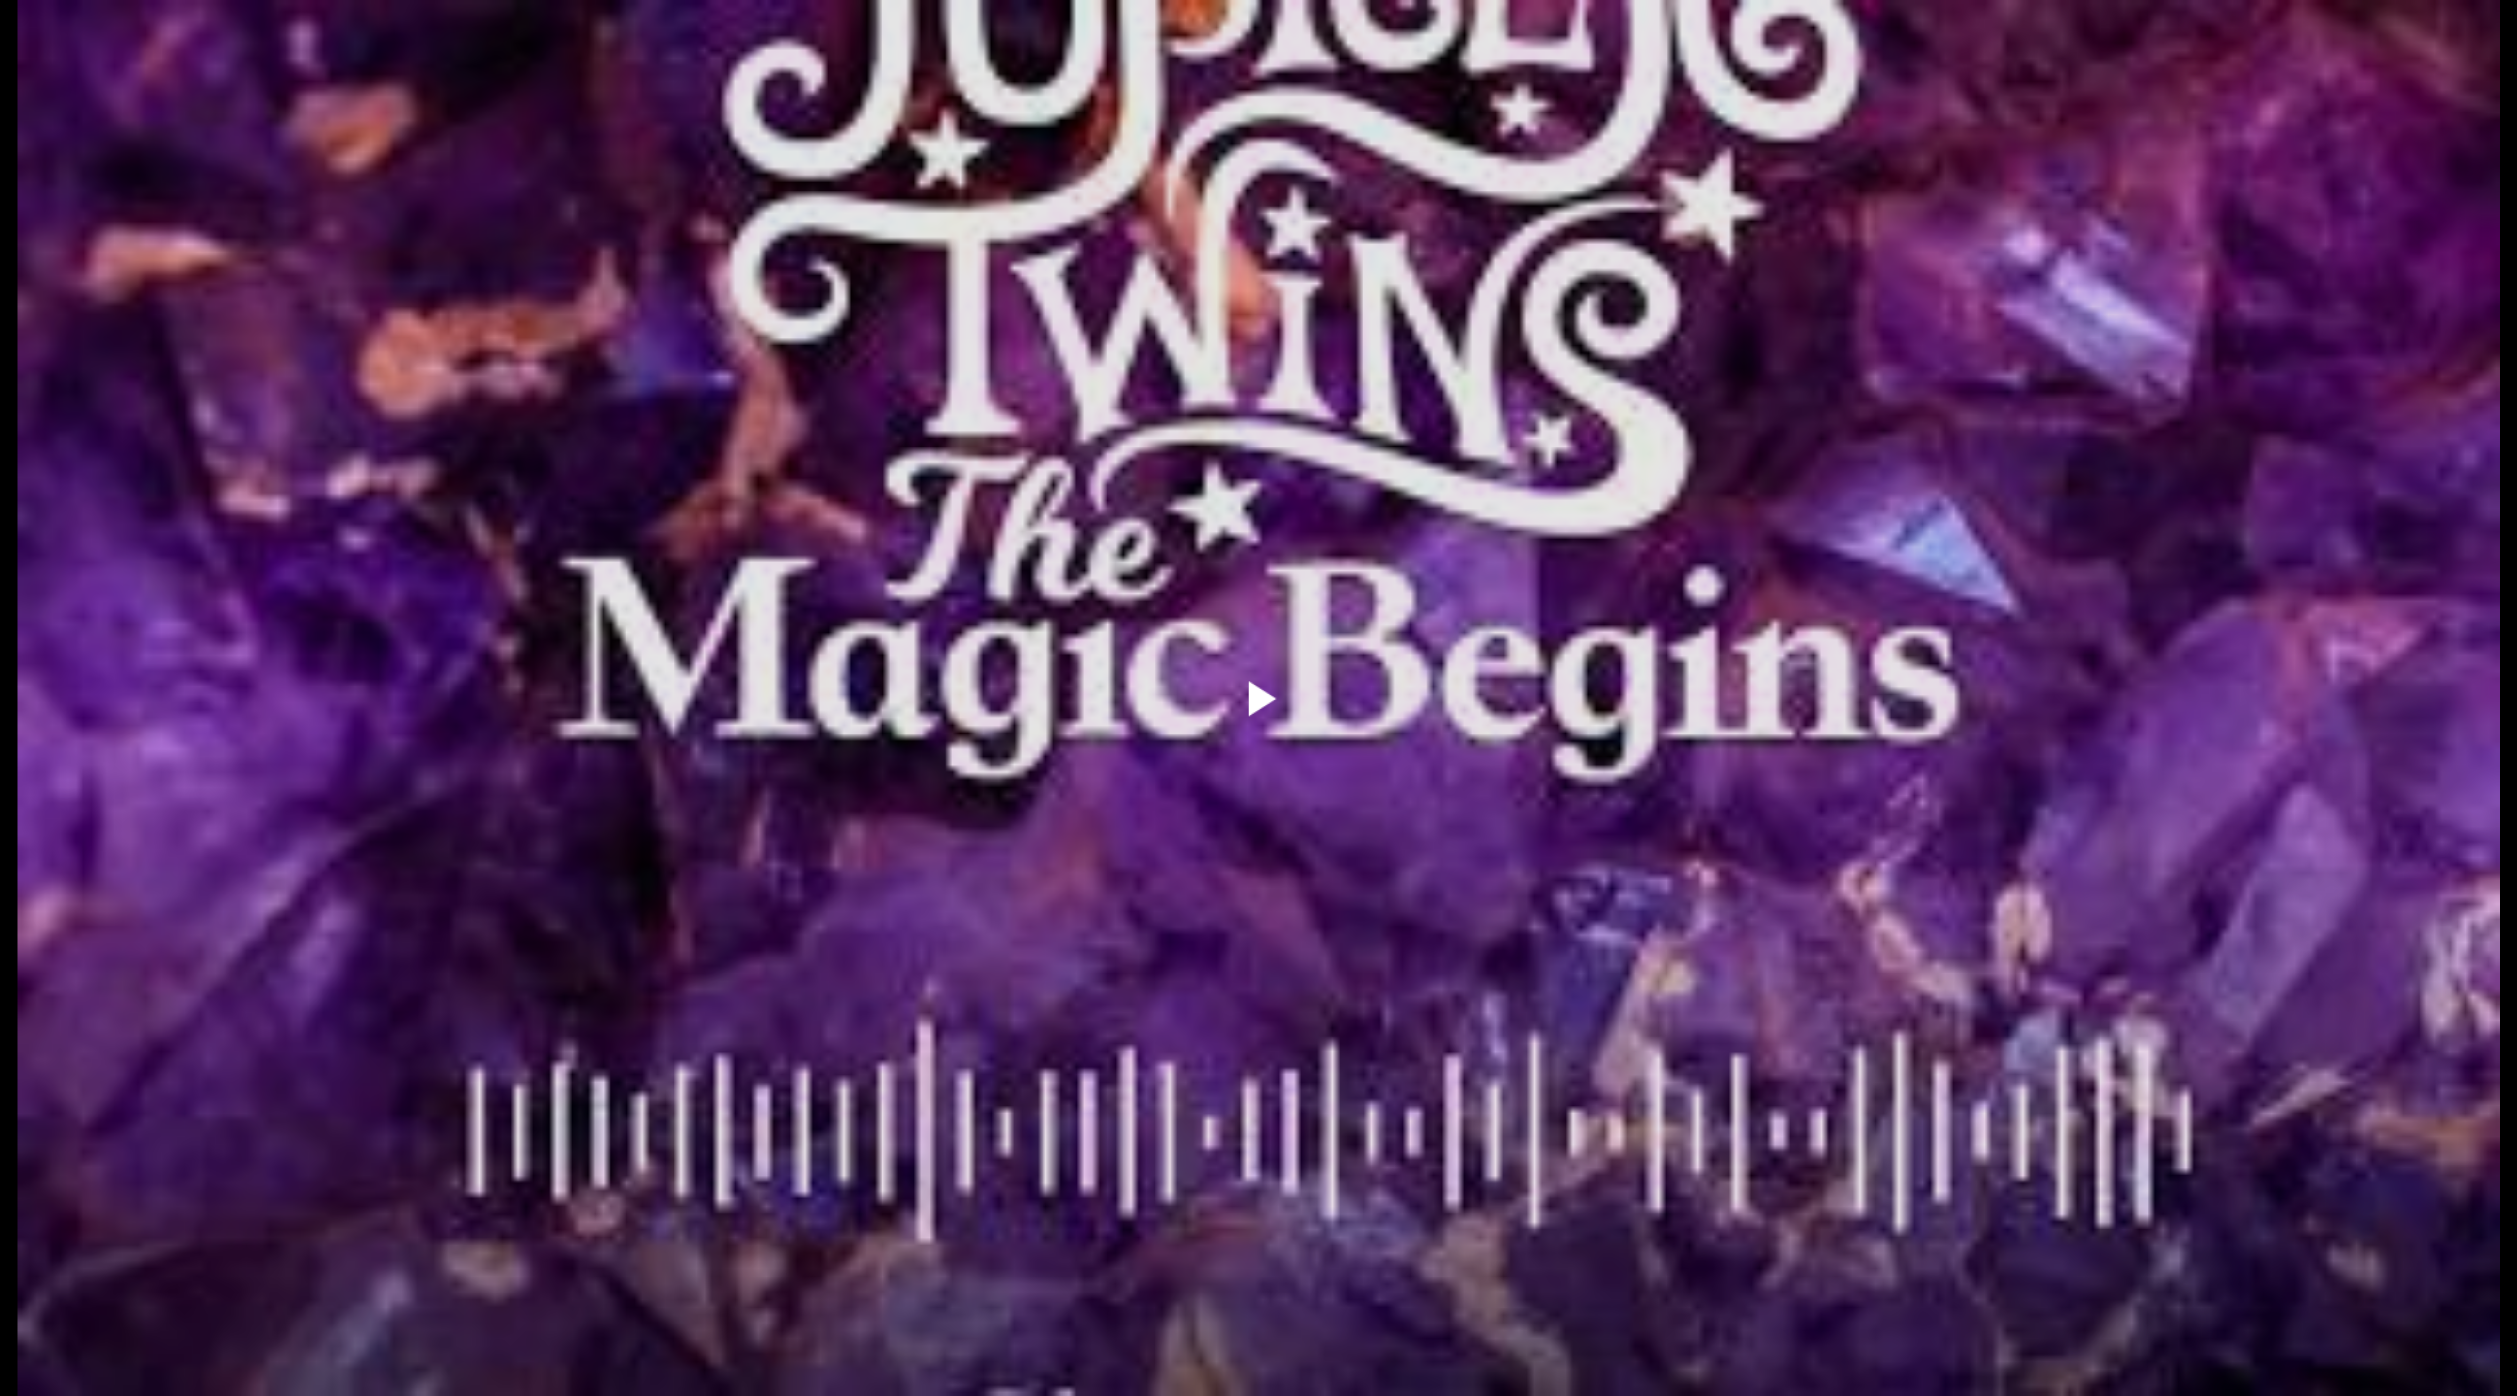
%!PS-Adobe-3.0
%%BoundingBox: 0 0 2517 1396
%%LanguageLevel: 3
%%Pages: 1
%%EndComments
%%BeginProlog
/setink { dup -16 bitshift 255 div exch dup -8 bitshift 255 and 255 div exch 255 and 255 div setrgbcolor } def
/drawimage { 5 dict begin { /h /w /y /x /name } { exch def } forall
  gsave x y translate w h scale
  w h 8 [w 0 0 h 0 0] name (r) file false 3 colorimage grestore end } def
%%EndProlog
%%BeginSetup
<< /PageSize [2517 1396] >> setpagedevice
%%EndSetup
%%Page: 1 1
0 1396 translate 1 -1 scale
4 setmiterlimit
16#000000 setink
0 0 2517 1396 rectfill
(img1.raw) 17 0 2483 1396 drawimage
(img2.raw) 1248 681 29 36 drawimage
showpage
%%EOF
